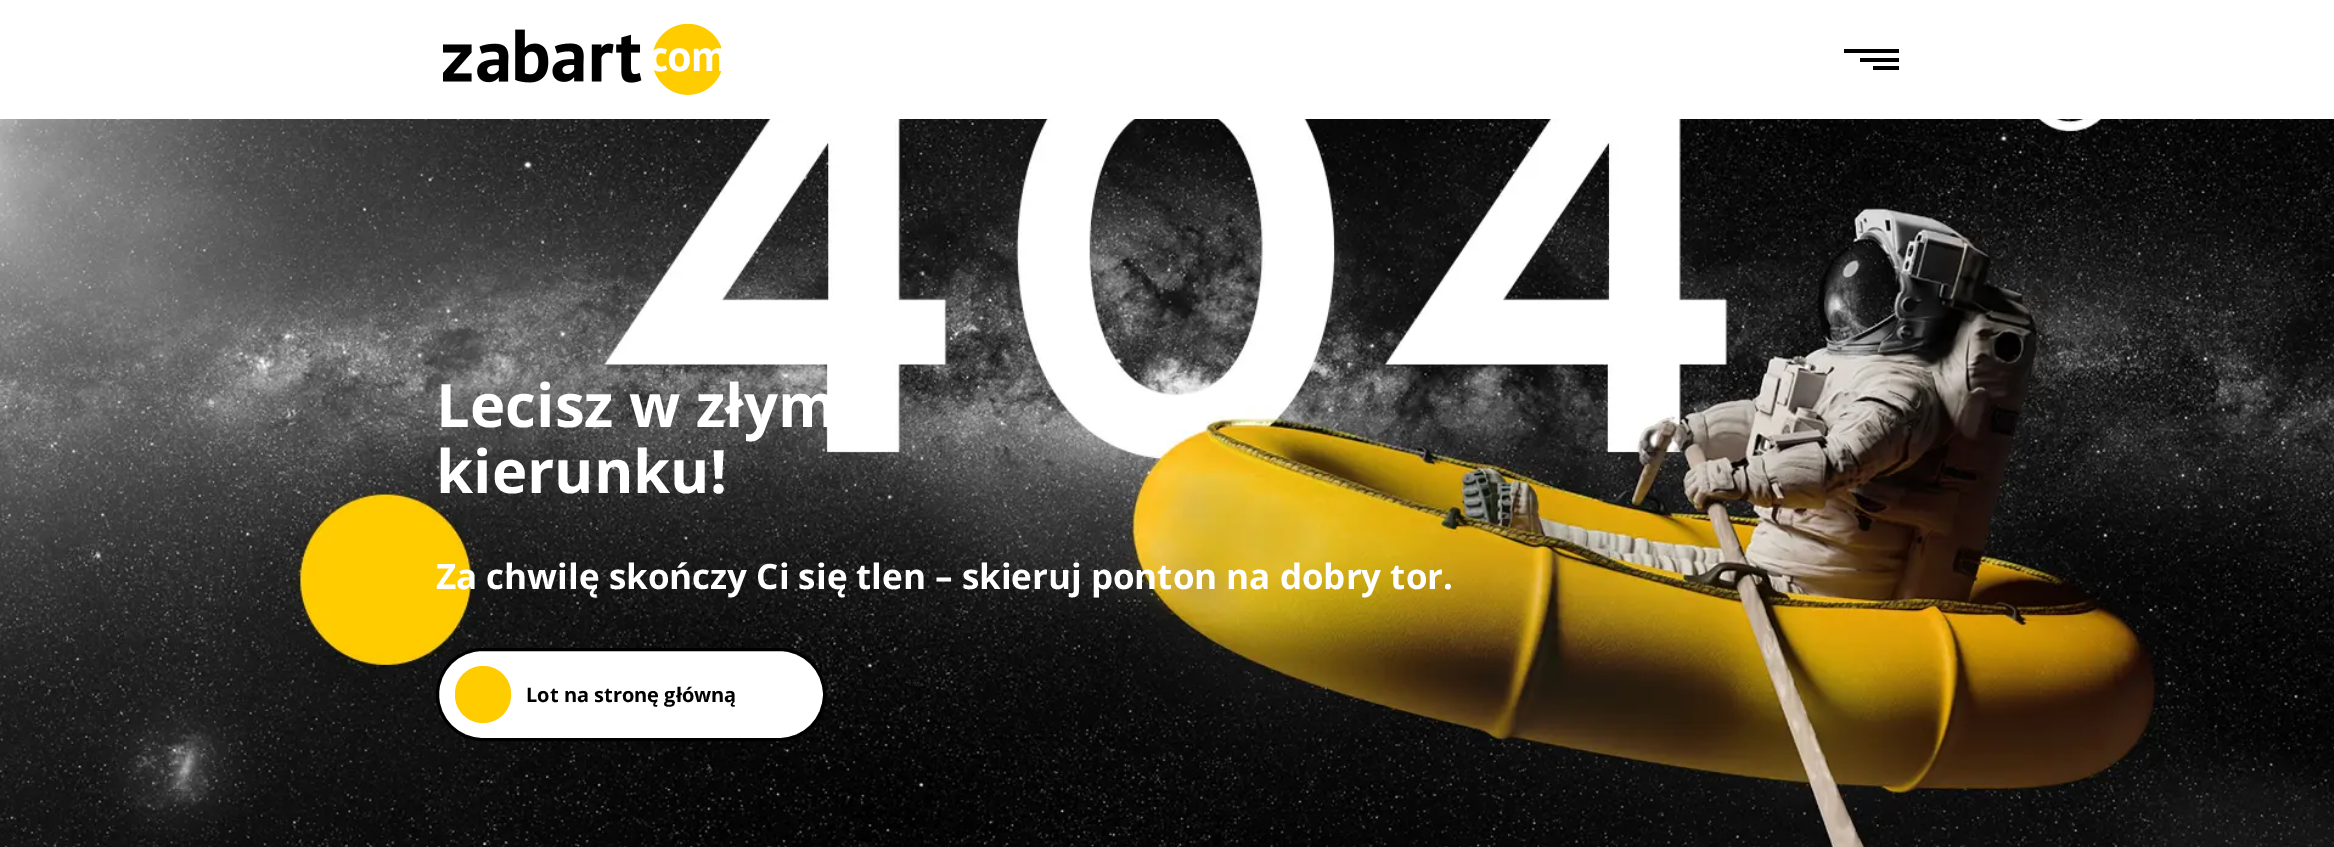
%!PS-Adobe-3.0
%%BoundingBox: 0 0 2334 847
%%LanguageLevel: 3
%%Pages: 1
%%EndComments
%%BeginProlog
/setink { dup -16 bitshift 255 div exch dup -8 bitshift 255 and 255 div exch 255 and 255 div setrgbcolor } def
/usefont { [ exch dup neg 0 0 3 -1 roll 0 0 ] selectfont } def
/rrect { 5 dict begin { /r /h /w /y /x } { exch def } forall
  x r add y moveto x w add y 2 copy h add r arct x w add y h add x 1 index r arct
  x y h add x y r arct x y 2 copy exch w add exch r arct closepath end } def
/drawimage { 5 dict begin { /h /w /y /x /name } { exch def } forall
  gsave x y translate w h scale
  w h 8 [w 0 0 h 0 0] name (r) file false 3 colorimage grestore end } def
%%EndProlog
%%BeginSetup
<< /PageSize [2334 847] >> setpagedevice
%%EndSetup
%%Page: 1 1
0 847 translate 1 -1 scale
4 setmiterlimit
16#FFFFFF setink
0 0 2334 847 rectfill
(img1.raw) 443 24 278 71 drawimage
[
    [1844 49 55 4 16#000000]
    [1860 58 39 4 16#000000]
    [1873 66 26 4 16#000000]
] { aload pop setink rectfill } forall
(img2.raw) 0 119 2334 728 drawimage
/OpenSans-Bold 60 usefont
16#FFFFFF setink
436 427 moveto (Lecisz w złym) show
436 493 moveto (kierunku!) show
/OpenSans-Bold 35 usefont
436 589 moveto (Za chwilę skończy Ci się tlen – skieruj ponton na dobry tor.) show
437.5 649.5 387 90 45 rrect gsave fill grestore
16#000000 setink
3 setlinewidth
stroke
16#FFCC00 setink
455 666 56 57 28 rrect fill
/OpenSans-Bold 20 usefont
16#000000 setink
526 702 moveto (Lot na stronę główną) show
showpage
%%EOF
